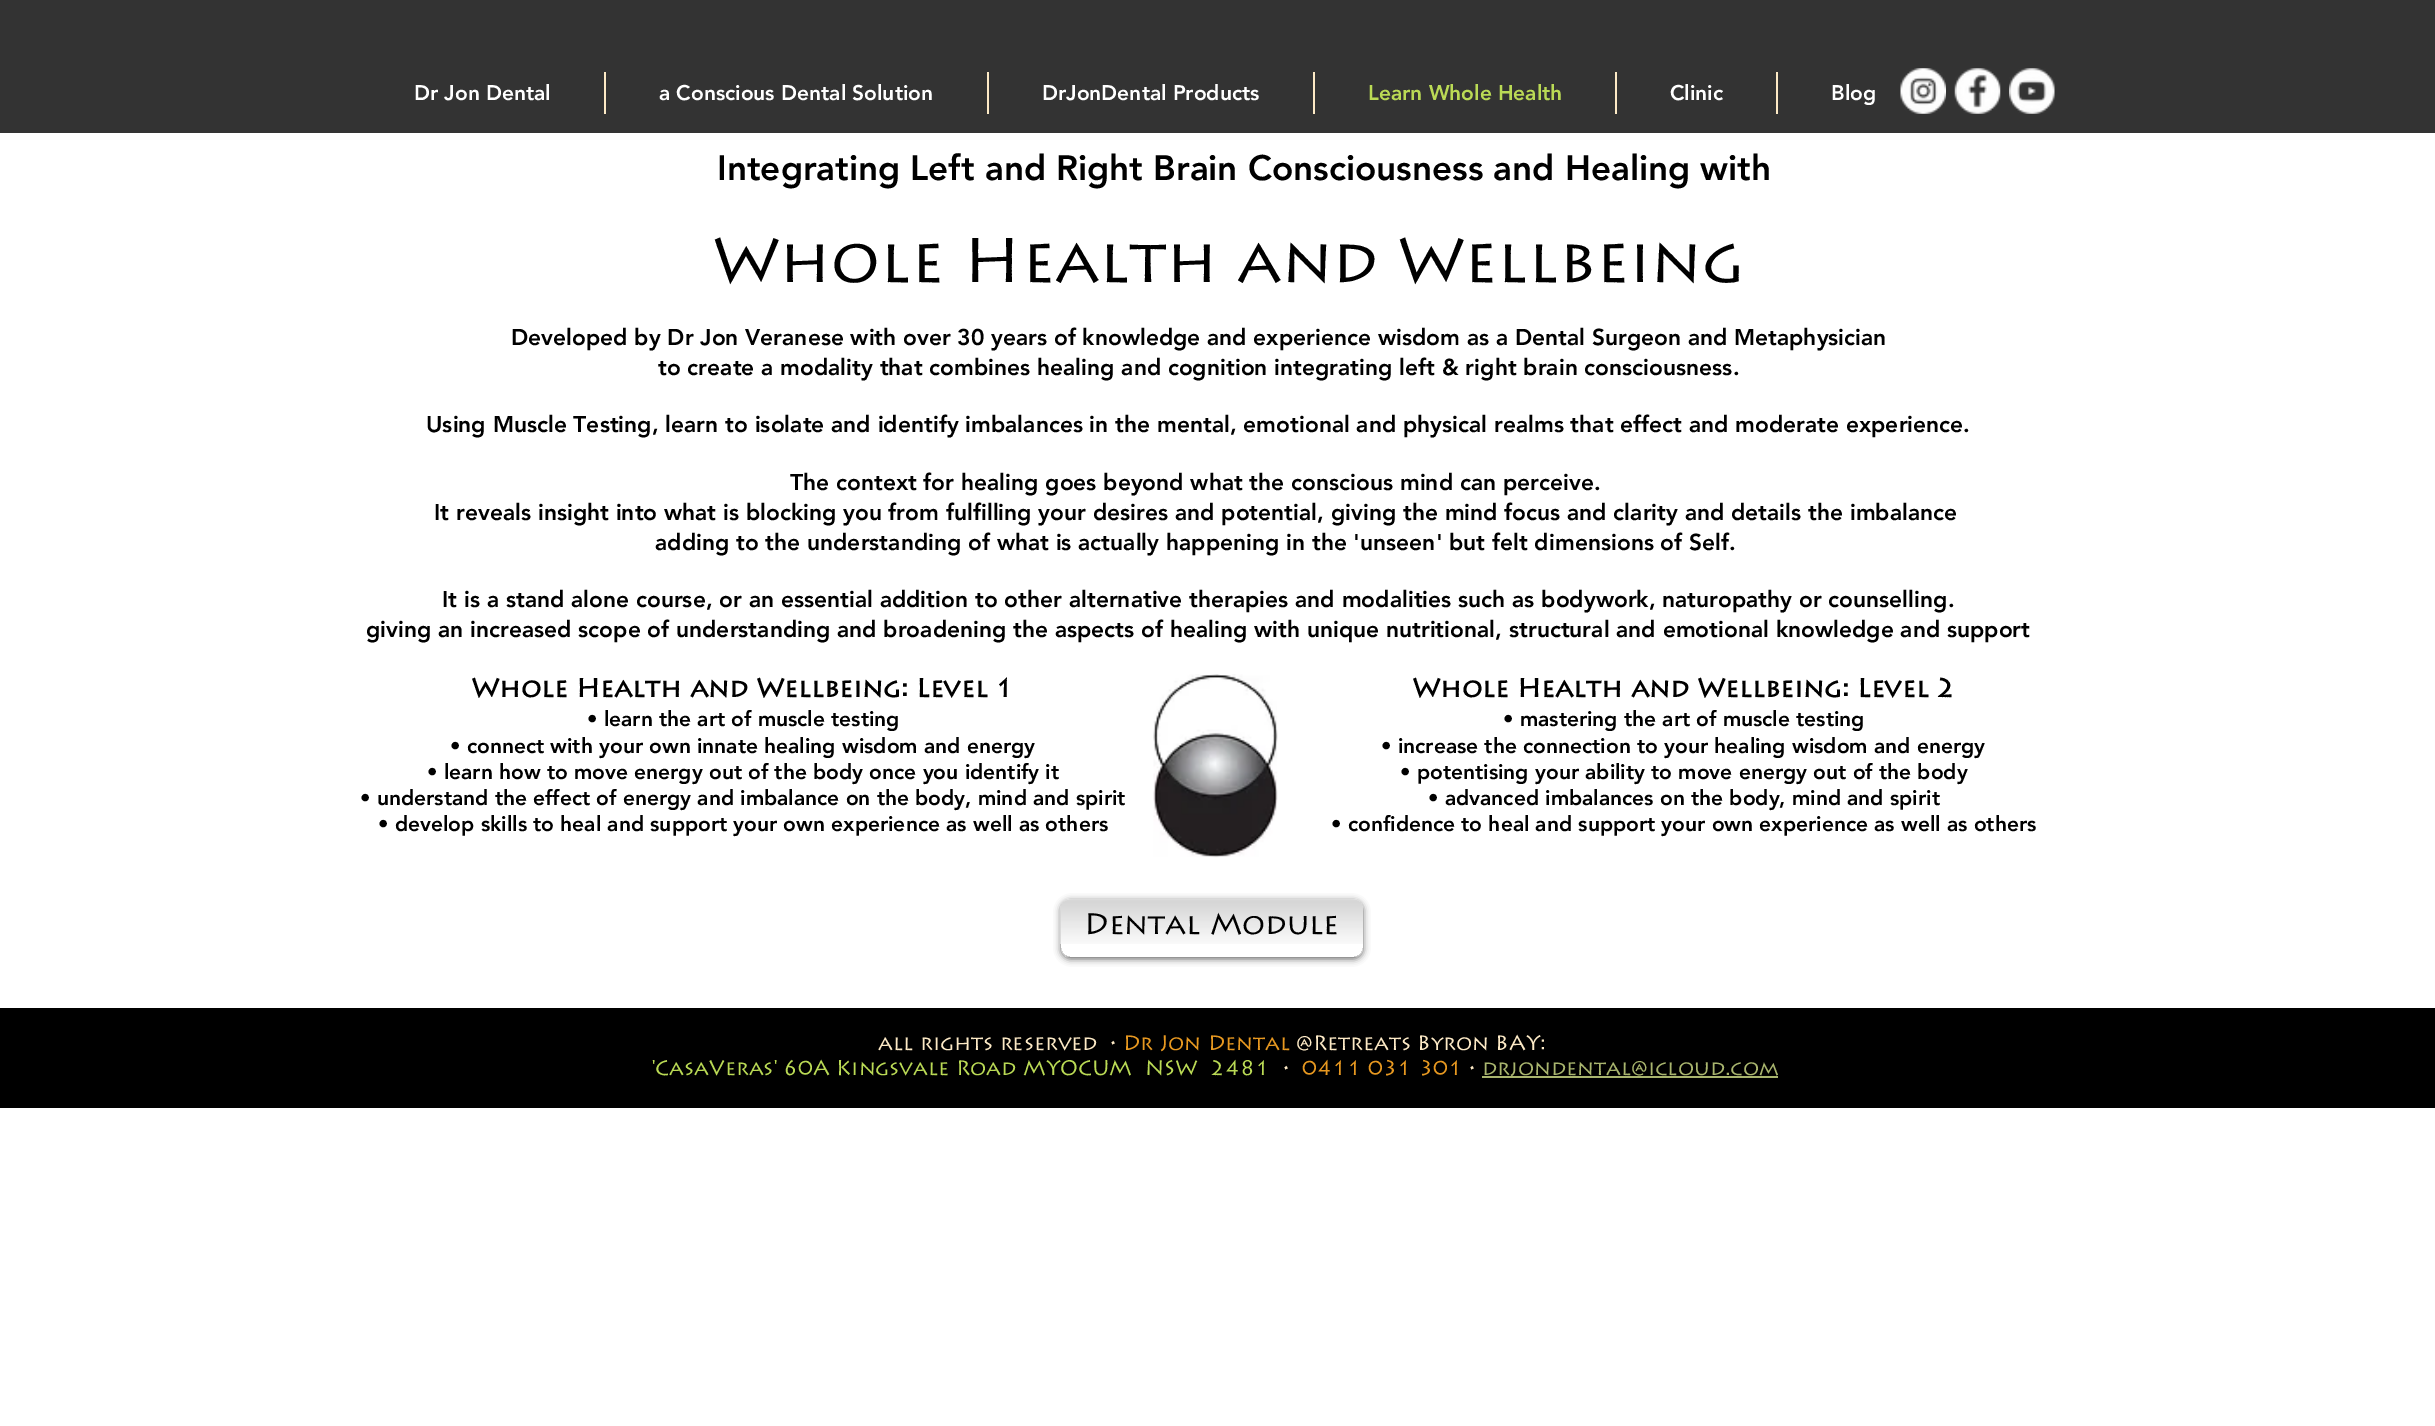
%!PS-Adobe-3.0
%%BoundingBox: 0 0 2435 1426
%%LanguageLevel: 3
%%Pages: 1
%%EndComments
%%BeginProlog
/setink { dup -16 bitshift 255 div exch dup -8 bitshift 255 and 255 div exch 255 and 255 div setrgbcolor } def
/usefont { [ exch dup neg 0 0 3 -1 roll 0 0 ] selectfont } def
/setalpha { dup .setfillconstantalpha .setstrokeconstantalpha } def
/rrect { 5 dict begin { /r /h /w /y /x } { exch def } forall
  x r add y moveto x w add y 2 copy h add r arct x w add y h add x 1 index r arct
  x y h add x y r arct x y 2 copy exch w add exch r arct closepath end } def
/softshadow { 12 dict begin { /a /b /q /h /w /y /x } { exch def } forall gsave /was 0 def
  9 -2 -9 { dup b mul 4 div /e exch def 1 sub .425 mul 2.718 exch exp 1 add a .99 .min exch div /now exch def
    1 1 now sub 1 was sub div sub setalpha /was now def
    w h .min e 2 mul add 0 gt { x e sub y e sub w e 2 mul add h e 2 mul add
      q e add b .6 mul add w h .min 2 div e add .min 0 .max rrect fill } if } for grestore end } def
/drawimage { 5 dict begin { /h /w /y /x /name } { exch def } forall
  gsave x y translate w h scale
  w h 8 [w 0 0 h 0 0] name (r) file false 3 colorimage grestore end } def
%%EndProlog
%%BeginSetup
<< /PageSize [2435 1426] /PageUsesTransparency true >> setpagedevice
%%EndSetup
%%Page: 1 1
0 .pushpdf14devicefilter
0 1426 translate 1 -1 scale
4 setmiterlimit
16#FFFFFF setink
0 0 2435 1426 rectfill
16#333333 setink
0 0 2435 133 rectfill
/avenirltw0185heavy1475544-Black 21 usefont
16#FFFFFF setink
414 100 moveto (Dr Jon Dental) show
16#FDEAC6 setink
604 72 2 42 rectfill
16#FFFFFF setink
659 100 moveto (a Conscious Dental Solution) show
16#FDEAC6 setink
987 72 2 42 rectfill
16#FFFFFF setink
1042 100 moveto (DrJonDental Products) show
16#FDEAC6 setink
1313 72 2 42 rectfill
16#BADA55 setink
1368 100 moveto (Learn Whole Health) show
16#FDEAC6 setink
1615 72 2 42 rectfill
16#FFFFFF setink
1670 100 moveto (Clinic) show
16#FDEAC6 setink
1776 72 2 42 rectfill
16#FFFFFF setink
1831 100 moveto (Blog) show
(img1.raw) 1900 68 46 46 drawimage
(img2.raw) 1954 68 47 46 drawimage
(img3.raw) 2009 68 46 46 drawimage
/avenirltw0185heavy1475544-Black 35 usefont
16#000000 setink
717 180 moveto (Integrating Left and Right Brain Consciousness and Healing with) show
/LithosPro-Regular 63 usefont
712 282 moveto (Whole Health and Wellbeing) show
/avenirltw0185heavy1475544-Black 22.75 usefont
[
    [(Developed by Dr Jon Veranese with over 30 years of knowledge and experience wisdom as a Dental Surgeon and Metaphysician) 511 345]
    [(to create a modality that combines healing and cognition integrating left & right brain consciousness.) 658 375]
    [(Using Muscle Testing, learn to isolate and identify imbalances in the mental, emotional and physical realms that effect and moderate experience.) 426 432]
    [(The context for healing goes beyond what the conscious mind can perceive.) 790 490]
    [(It reveals insight into what is blocking you from fulfilling your desires and potential, giving the mind focus and clarity and details the imbalance) 434 520]
    [(adding to the understanding of what is actually happening in the 'unseen' but felt dimensions of Self.) 655 550]
    [(It is a stand alone course, or an essential addition to other alternative therapies and modalities such as bodywork, naturopathy or counselling.) 442 607]
    [(giving an increased scope of understanding and broadening the aspects of healing with unique nutritional, structural and emotional knowledge and support) 366 637]
] { aload pop moveto show } forall
/LithosPro-Bold 26.25 usefont
471 697 moveto (Whole Health and Wellbeing: Level 1) show
/avenirltw0185heavy1475544-Black 21 usefont
[
    [(• learn the art of muscle testing) 587 726]
    [(• connect with your own innate healing wisdom and energy) 450 753]
    [(• learn how to move energy out of the body once you identify it) 427 779]
    [(• understand the effect of energy and imbalance on the body, mind and spirit) 360 805]
    [(• develop skills to heal and support your own experience as well as others) 378 831]
] { aload pop moveto show } forall
(img4.raw) 1153 674 125 184 drawimage
/LithosPro-Bold 26.25 usefont
1412 697 moveto (Whole Health and Wellbeing: Level 2) show
/avenirltw0185heavy1475544-Black 21 usefont
[
    [(• mastering the art of muscle testing) 1503 726]
    [(• increase the connection to your healing wisdom and energy) 1381 753]
    [(• potentising your ability to move energy out of the body) 1400 779]
    [(• advanced imbalances on the body, mind and spirit) 1428 805]
    [(• confidence to heal and support your own experience as well as others) 1331 831]
] { aload pop moveto show } forall
gsave
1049 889 moveto 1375 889 lineto 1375 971 lineto 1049 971 lineto closepath 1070 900 moveto 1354 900 lineto 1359 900 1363 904 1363 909 curveto 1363 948 lineto 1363 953 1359 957 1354 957 curveto 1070 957 lineto 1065 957 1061 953 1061 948 curveto 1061 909 lineto 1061 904 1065 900 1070 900 curveto closepath eoclip newpath
1061 901 302 58 9 3.5 0.6 softshadow
grestore
0.53 setalpha
16#FFFFFF setink
1061 900 302 57 9 rrect fill
1 setalpha
(img5.raw) 1060 899 303 45 drawimage
16#D0D0D0 setink
1065 956 1 1 rectfill
/LithosPro-Regular 29.75 usefont
16#000000 setink
1084 934 moveto (Dental Module) show
0 1008 2435 100 rectfill
/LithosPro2-Regular 21 usefont
16#FDEAC6 setink
878 1050 moveto (all rights reserved  •) show
16#E79820 setink
1123 1050 moveto (Dr Jon Dental) show
16#FDEAC6 setink
1296 1050 moveto (@Retreats Byron BAY:) show
16#BADA55 setink
652 1075 moveto ('CasaVeras' 60A Kingsvale Road MYOCUM  NSW  2481) show
16#FDEAC6 setink
1283 1075 moveto (•) show
16#E79820 setink
1302 1075 moveto (0411 031 301) show
16#FDEAC6 setink
1469 1075 moveto (•) show
16#A9B56E setink
1482 1076 296 2 rectfill
1482 1075 moveto (drjondental@icloud.com) show
.poppdf14devicefilter showpage
%%EOF
